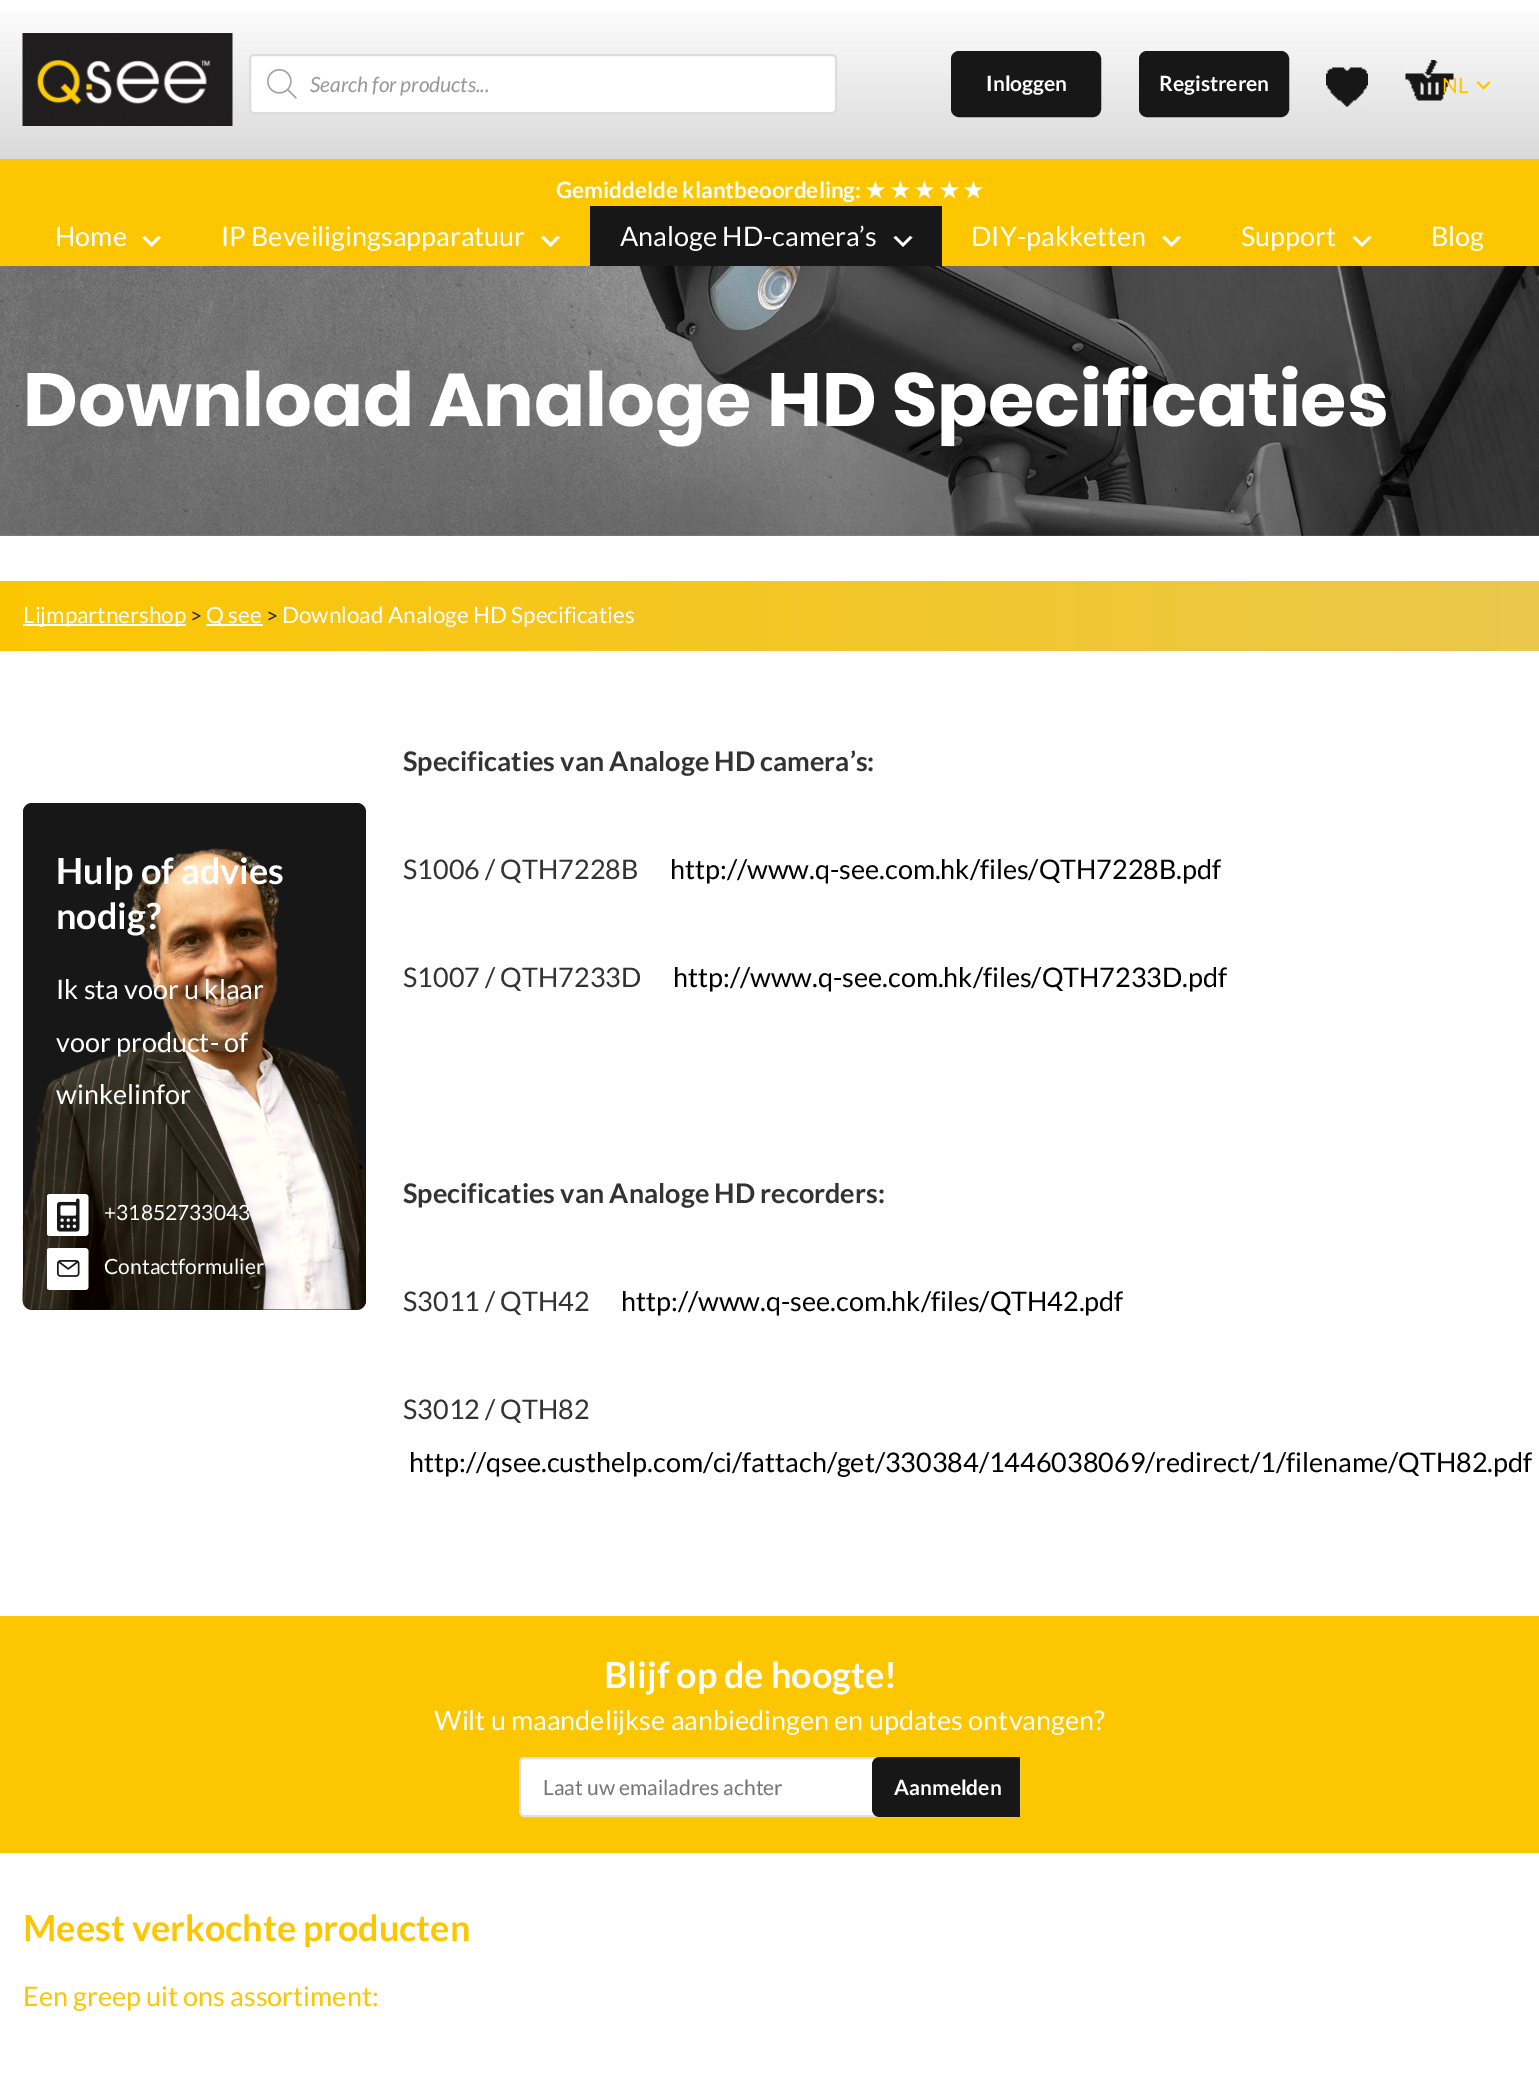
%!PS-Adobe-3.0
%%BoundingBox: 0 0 1539 2078
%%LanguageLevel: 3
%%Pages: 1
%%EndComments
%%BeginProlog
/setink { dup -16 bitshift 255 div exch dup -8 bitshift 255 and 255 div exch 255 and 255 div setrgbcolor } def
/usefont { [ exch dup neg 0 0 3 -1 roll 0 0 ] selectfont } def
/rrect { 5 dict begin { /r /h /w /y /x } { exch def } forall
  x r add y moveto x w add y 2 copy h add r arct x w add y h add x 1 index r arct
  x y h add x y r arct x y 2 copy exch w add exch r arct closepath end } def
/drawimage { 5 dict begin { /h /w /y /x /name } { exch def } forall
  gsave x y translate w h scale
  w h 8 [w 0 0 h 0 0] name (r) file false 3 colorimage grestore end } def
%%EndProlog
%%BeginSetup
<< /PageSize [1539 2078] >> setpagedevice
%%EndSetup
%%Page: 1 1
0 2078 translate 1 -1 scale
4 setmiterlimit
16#FFFFFF setink
0 0 1539 2078 rectfill
gsave 0 11 moveto 1539 11 lineto 1539 159 lineto 0 159 lineto closepath clip newpath
<< /ShadingType 2 /ColorSpace /DeviceRGB /Coords [770 159 770 0] /Extend [true true] /Function << /FunctionType 2 /Domain [0 1] /C0 [0.855 0.855 0.855] /C1 [1 1 1] /N 1 >> >> shfill grestore
(img1.raw) 22 33 211 93 drawimage
250 55 586 58 4 rrect gsave fill grestore
16#DDDDDD setink
2 setlinewidth
stroke
(img2.raw) 267 69 30 30 drawimage
/Lato-Italic 21 usefont
16#999999 setink
310 92 moveto (Search for products...) show
16#171717 setink
952.5 52.5 147 63 6.5 rrect gsave fill grestore
3 setlinewidth
stroke
/Lato-Bold 21 usefont
16#FFFFFF setink
986 91 moveto (Inloggen) show
16#171717 setink
1140.5 52.5 147 63 6.5 rrect gsave fill grestore
stroke
16#FFFFFF setink
1159 91 moveto (Registreren) show
(img3.raw) 1326 67 42 40 drawimage
(img4.raw) 1405 60 49 41 drawimage
/Lato-Regular 21 usefont
16#FCC601 setink
1442 93 moveto (NL) show
(img5.raw) 1476 81 15 9 drawimage
0 159 1539 107 rectfill
/Lato-Bold 22.5 usefont
16#FFFFFF setink
556 198 moveto (Gemiddelde klantbeoordeling:) show
/DejaVuSans-Bold 22.5 usefont
[
    [(★) 865 198]
    [(★) 890 198]
    [(★) 914 198]
    [(★) 939 198]
    [(★) 963 198]
] { aload pop moveto show } forall
/Lato-Regular 27 usefont
55 246 moveto (Home) show
145 236 moveto 151.5 243 lineto 158 236 lineto 161 237.5 lineto 151.5 247 lineto 142 237.5 lineto closepath fill
221 246 moveto (IP Beveiligingsapparatuur) show
544 236 moveto 550.5 243 lineto 557 236 lineto 560 237.5 lineto 550.5 247 lineto 541 237.5 lineto closepath fill
16#171717 setink
590 206 352 60 rectfill
16#FFFFFF setink
620 246 moveto (Analoge HD-camera’s) show
896 236 moveto 903 243 lineto 910 236 lineto 912.5 237.5 lineto 903 247 lineto 893.5 237.5 lineto closepath fill
971 246 moveto (DIY-pakketten) show
1165 236 moveto 1171.5 243 lineto 1178 236 lineto 1181 237.5 lineto 1171.5 247 lineto 1162 237.5 lineto closepath fill
1241 246 moveto (Support) show
1355 236 moveto 1362 243 lineto 1369 236 lineto 1371.5 237.5 lineto 1362 247 lineto 1352.5 237.5 lineto closepath fill
1431 246 moveto (Blog) show
(img6.raw) 0 266 1539 270 drawimage
/Poppins-Bold 75 usefont
23 426 moveto (Download Analoge HD Specificaties) show
gsave 0 581 moveto 1539 581 lineto 1539 651 lineto 0 651 lineto closepath clip newpath
<< /ShadingType 2 /ColorSpace /DeviceRGB /Coords [0 616 1539 616] /Extend [true true] /Function << /FunctionType 2 /Domain [0 1] /C0 [0.988 0.776 0.004] /C1 [0.922 0.784 0.298] /N 1 >> >> shfill grestore
23 624 163 2 rectfill
/Lato-Regular 22.5 usefont
23 623 moveto (Lijmpartnershop) show
/Lato-Regular 21 usefont
16#212529 setink
190 623 moveto (>) show
16#FFFFFF setink
206 624 57 2 rectfill
/Lato-Regular 22.5 usefont
206 623 moveto (Q see) show
/Lato-Regular 21 usefont
16#212529 setink
266 623 moveto (>) show
/Lato-Regular 22.5 usefont
16#FFFFFF setink
282 623 moveto (Download Analoge HD Specificaties) show
16#171717 setink
23 803 343 507 9 rrect fill
(img7.raw) 22 848 344 462 drawimage
/Lato-Bold 36 usefont
16#FFFFFF setink
56 884 moveto (Hulp of advies) show
56 929 moveto (nodig?) show
/Lato-Regular 27 usefont
[
    [(Ik sta voor u klaar) 56 999]
    [(voor product- of) 56 1052]
    [(winkelinfor) 56 1104]
] { aload pop moveto show } forall
(img8.raw) 47 1194 42 42 drawimage
/Lato-Regular 21 usefont
104 1220 moveto (+31852733043) show
(img9.raw) 47 1248 42 42 drawimage
104 1274 moveto (Contactformulier) show
/Lato-Bold 27 usefont
16#333333 setink
403 771 moveto (Specificaties van Analoge HD camera’s:) show
/Lato-Regular 27 usefont
403 879 moveto (S1006 / QTH7228B) show
16#000000 setink
670 879 moveto (http://www.q-see.com.hk/files/QTH7228B.pdf) show
16#333333 setink
403 987 moveto (S1007 / QTH7233D) show
16#000000 setink
673 987 moveto (http://www.q-see.com.hk/files/QTH7233D.pdf) show
/Lato-Bold 27 usefont
16#333333 setink
403 1203 moveto (Specificaties van Analoge HD recorders:) show
/Lato-Regular 27 usefont
403 1311 moveto (S3011 / QTH42) show
16#000000 setink
621 1311 moveto (http://www.q-see.com.hk/files/QTH42.pdf) show
16#333333 setink
403 1419 moveto (S3012 / QTH82) show
16#000000 setink
409 1472 moveto (http://qsee.custhelp.com/ci/fattach/get/330384/1446038069/redirect/1/filename/QTH82.pdf) show
16#FCC601 setink
0 1616 1539 237 rectfill
/Lato-Bold 36 usefont
16#FFFFFF setink
604 1688 moveto (Blijf op de hoogte!) show
/Lato-Regular 27 usefont
434 1730 moveto (Wilt u maandelijkse aanbiedingen en updates ontvangen?) show
520 1758 499 58 4 rrect gsave fill grestore
16#E0E0E0 setink
2 setlinewidth
stroke
/Lato-Regular 21 usefont
16#757575 setink
543 1795 moveto (Laat uw emailadres achter) show
16#171717 setink
880 1757 moveto 1020 1757 lineto 1020 1817 lineto 880 1817 lineto 875.5 1817 872 1813.5 872 1809 curveto 872 1765 lineto 872 1760.5 875.5 1757 880 1757 curveto closepath fill
/Lato-Bold 21 usefont
16#FFFFFF setink
894 1795 moveto (Aanmelden) show
/Lato-Bold 36 usefont
16#FCC601 setink
23 1941 moveto (Meest verkochte producten) show
/Lato-Regular 27 usefont
23 2006 moveto (Een greep uit ons assortiment:) show
showpage
%%EOF
